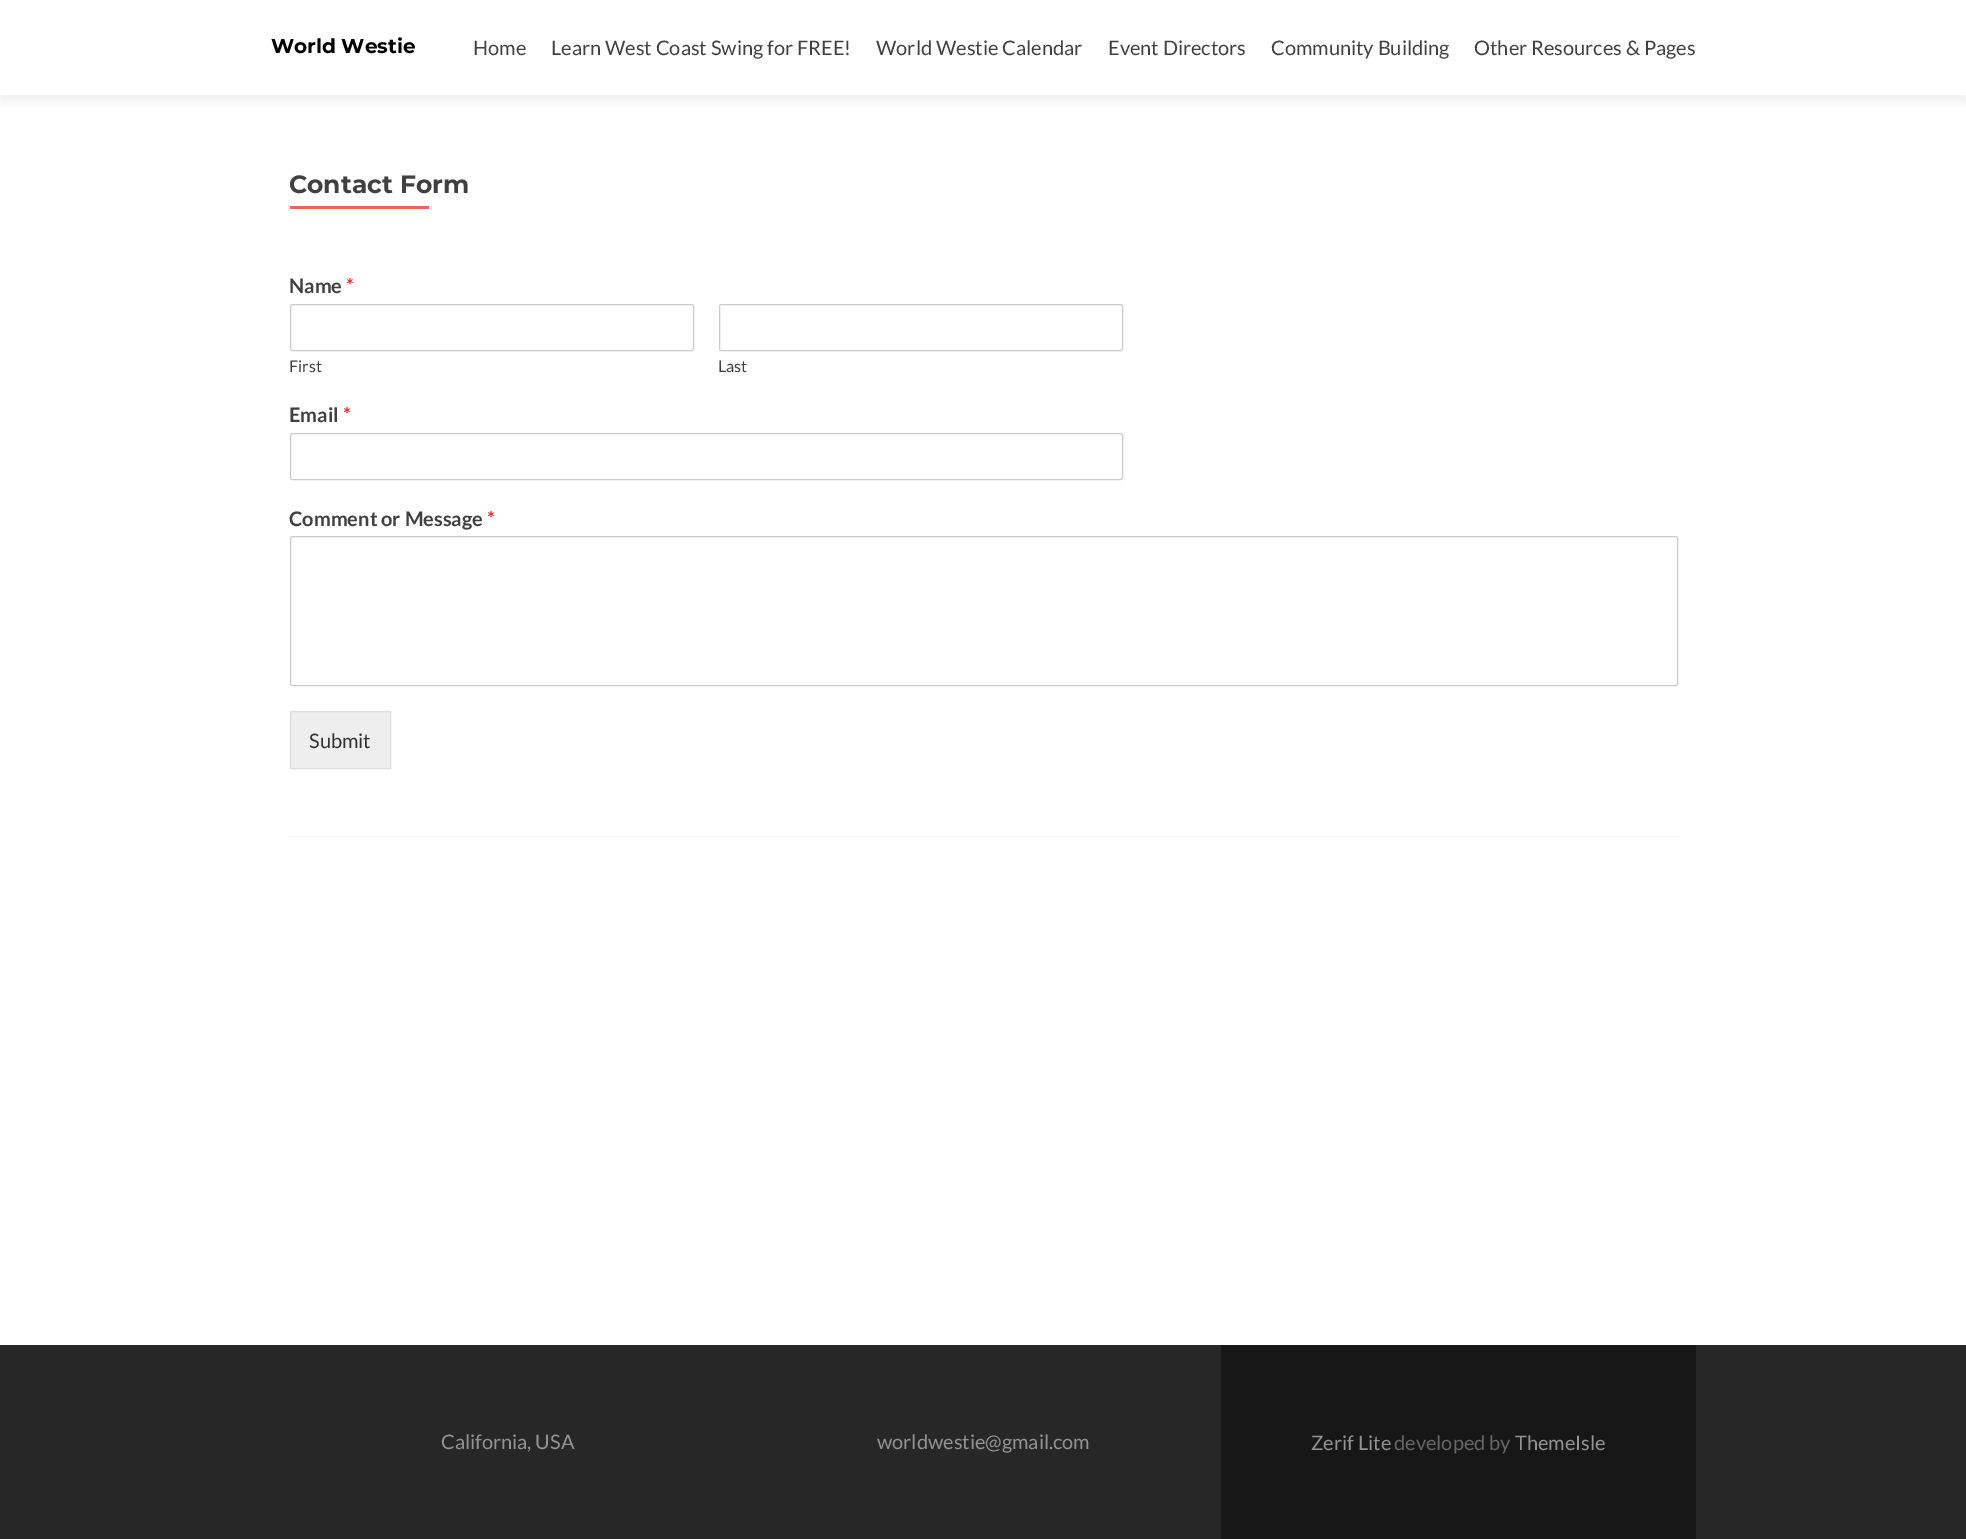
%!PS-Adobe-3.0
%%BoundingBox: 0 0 1966 1539
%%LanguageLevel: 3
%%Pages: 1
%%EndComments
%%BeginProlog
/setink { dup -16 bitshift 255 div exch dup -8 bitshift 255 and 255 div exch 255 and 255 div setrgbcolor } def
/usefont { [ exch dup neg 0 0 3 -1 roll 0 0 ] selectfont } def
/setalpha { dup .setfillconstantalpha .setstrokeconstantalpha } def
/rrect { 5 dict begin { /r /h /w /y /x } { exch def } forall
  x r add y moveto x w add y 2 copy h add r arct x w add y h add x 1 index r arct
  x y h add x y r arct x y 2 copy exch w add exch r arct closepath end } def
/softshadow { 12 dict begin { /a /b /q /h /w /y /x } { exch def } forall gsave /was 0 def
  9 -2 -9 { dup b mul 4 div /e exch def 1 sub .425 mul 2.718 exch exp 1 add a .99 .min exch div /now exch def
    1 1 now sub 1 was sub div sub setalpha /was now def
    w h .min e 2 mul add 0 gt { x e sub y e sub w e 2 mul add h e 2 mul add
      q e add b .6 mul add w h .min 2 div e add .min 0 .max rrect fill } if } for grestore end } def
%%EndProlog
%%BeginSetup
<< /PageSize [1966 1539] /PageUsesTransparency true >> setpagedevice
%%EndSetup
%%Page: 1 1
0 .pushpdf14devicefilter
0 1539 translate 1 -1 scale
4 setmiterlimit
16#FFFFFF setink
0 0 1966 1539 rectfill
gsave
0 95 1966 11 rectclip
16#323232 setink
0 6 1966 95 0 7 0.08 softshadow
grestore
/Montserrat-Bold 20 usefont
16#000000 setink
271 53 moveto (World Westie) show
/Lato-Regular 20 usefont
16#404040 setink
[
    [(Home) 473 55]
    [(Learn West Coast Swing for FREE!) 551 55]
    [(World Westie Calendar) 876 55]
    [(Event Directors) 1108 55]
    [(Community Building) 1271 55]
    [(Other Resources & Pages) 1474 55]
] { aload pop moveto show } forall
16#F2F2F2 setink
290 836 1388 1 rectfill
/Montserrat-Bold 25 usefont
16#404040 setink
289 193 moveto (Contact Form) show
16#E96656 setink
290 206 139 3 rectfill
/Lato-Bold 20 usefont
16#404040 setink
289 293 moveto (Name) show
/Lato-Regular 20 usefont
16#FF0000 setink
346 293 moveto (*) show
16#CCCCCC setink
290.5 304.5 403 46 2 rrect stroke
/Lato-Regular 16 usefont
16#404040 setink
289 372 moveto (First) show
16#CCCCCC setink
719.5 304.5 403 46 2 rrect stroke
16#404040 setink
718 372 moveto (Last) show
/Lato-Bold 20 usefont
289 422 moveto (Email) show
/Lato-Regular 20 usefont
16#FF0000 setink
343 422 moveto (*) show
16#CCCCCC setink
290.5 433.5 832 46 2 rrect stroke
/Lato-Bold 20 usefont
16#404040 setink
289 526 moveto (Comment or Message) show
/Lato-Regular 20 usefont
16#FF0000 setink
487 526 moveto (*) show
16#CCCCCC setink
290.5 536.5 1387 149 2 rrect stroke
16#EEEEEE setink
290.5 711.5 moveto 390.5 711.5 lineto 390.5 768.5 lineto 290.5 768.5 lineto closepath gsave fill grestore
16#DDDDDD setink
stroke
16#333333 setink
309 748 moveto (Submit) show
16#272727 setink
0 1345 1966 194 rectfill
16#939393 setink
441 1449 moveto (California, USA) show
877 1449 moveto (worldwestie@gmail.com) show
16#171717 setink
1221 1345 475 194 rectfill
16#939393 setink
1311 1450 moveto (Zerif Lite) show
16#666666 setink
1394 1450 moveto (developed by) show
16#939393 setink
1515 1450 moveto (ThemeIsle) show
.poppdf14devicefilter showpage
%%EOF
